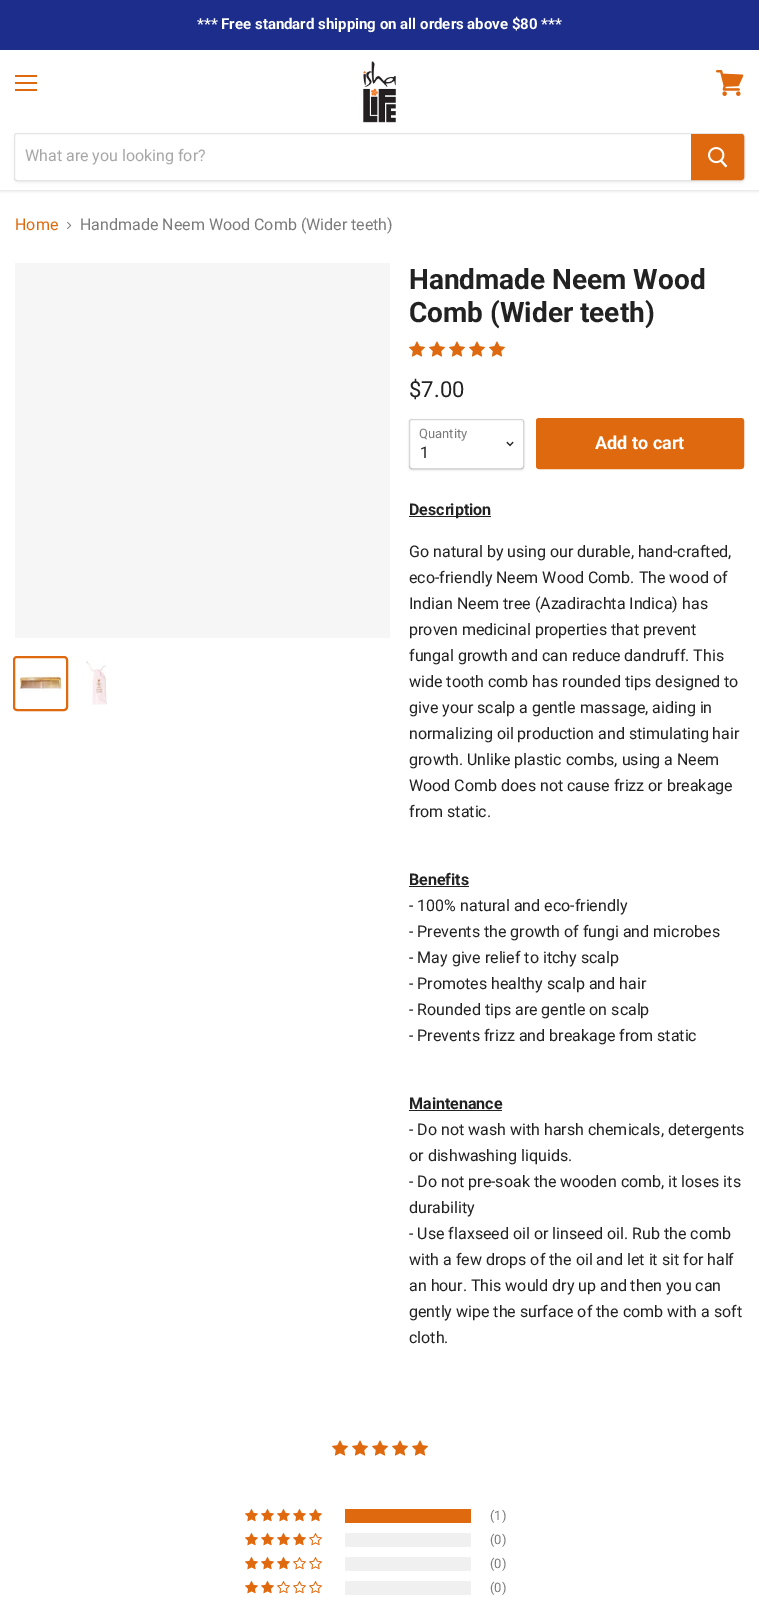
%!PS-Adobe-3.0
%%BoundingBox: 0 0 759 1598
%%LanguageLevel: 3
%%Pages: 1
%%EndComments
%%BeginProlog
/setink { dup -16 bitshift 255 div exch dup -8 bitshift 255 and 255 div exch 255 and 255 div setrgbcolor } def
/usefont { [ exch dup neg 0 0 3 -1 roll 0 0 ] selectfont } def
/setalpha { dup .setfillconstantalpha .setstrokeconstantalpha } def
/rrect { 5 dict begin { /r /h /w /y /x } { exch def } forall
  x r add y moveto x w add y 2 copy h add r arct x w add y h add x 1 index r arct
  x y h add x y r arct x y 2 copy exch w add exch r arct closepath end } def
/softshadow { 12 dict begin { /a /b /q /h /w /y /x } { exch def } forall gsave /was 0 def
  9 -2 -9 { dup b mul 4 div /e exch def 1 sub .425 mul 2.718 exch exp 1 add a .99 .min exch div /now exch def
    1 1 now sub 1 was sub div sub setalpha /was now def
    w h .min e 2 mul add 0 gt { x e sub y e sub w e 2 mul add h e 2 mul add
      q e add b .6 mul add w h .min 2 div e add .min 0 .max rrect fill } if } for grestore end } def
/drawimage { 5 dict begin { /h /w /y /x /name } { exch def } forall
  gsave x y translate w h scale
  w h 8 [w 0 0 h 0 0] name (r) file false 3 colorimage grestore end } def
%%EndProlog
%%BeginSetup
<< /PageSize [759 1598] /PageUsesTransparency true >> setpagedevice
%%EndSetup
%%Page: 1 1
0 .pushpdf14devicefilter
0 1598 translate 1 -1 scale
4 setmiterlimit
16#FFFFFF setink
0 0 759 1598 rectfill
gsave
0 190 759 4 rectclip
16#7F7F7F setink
0 1 759 190 0 2 0.25 softshadow
grestore
16#1D2D8C setink
0 0 759 50 rectfill
/Roboto-Bold 15 usefont
16#FFFFFF setink
197 29 moveto (*** Free standard shipping on all orders above $80 ***) show
[
    [15 75 22 2 16#DE690E]
    [15 82 22 2 16#DE690E]
    [15 89 22 2 16#DE690E]
] { aload pop setink rectfill } forall
(img1.raw) 716 70 28 26 drawimage
(img2.raw) 362 61 34 62 drawimage
gsave
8 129 moveto 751 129 lineto 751 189 lineto 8 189 lineto closepath 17 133 moveto 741 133 lineto 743 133 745 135 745 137 curveto 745 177 lineto 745 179 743 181 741 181 curveto 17 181 lineto 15.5 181 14 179.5 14 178 curveto 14 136 lineto 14 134.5 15.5 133 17 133 curveto closepath eoclip newpath
16#7F7F7F setink
14 135 731 48 4 1.5 0.11 softshadow
grestore
0.2 setalpha
16#7F7F7F setink
17 133.5 moveto 741 133.5 lineto 743 133.5 744.5 135 744.5 137 curveto 744.5 177 lineto 744.5 179 743 180.5 741 180.5 curveto 17 180.5 lineto 15.5 180.5 14.5 179.5 14.5 178 curveto 14.5 136 lineto 14.5 134.5 15.5 133.5 17 133.5 curveto closepath stroke
/Roboto-Regular 16 usefont
1 setalpha
16#A7A7A7 setink
25 161 moveto (What are you looking for?) show
16#DE690E setink
691.5 134.5 moveto 741 134.5 lineto 742.5 134.5 743.5 135.5 743.5 137 curveto 743.5 177 lineto 743.5 178.5 742.5 179.5 741 179.5 curveto 691.5 179.5 lineto closepath gsave fill grestore
stroke
(img3.raw) 708 147 20 21 drawimage
15 230 moveto (Home) show
(img4.raw) 67 221 5 8 drawimage
16#7B7B7B setink
80 230 moveto (Handmade Neem Wood Comb \(Wider teeth\)) show
16#F6F6F6 setink
15 263 375 375 rectfill
16#DE690E setink
2 setlinewidth
14 657 53 53 3 rrect stroke
(img5.raw) 17 675 45 17 drawimage
(img6.raw) 86 660 21 45 drawimage
/Roboto-Bold 28 usefont
16#222222 setink
409 289 moveto (Handmade Neem Wood) show
409 322 moveto (Comb \(Wider teeth\)) show
(img7.raw) 409 341 16 16 drawimage
(img7.raw) 429 341 16 16 drawimage
(img7.raw) 449 341 16 16 drawimage
(img7.raw) 469 341 16 16 drawimage
(img7.raw) 489 341 16 16 drawimage
/Roboto-Regular 22 usefont
409 397 moveto ($7.00) show
gsave
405 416 moveto 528 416 lineto 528 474 lineto 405 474 lineto closepath 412 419 moveto 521 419 lineto 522.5 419 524 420.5 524 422 curveto 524 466 lineto 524 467.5 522.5 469 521 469 curveto 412 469 lineto 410.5 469 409 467.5 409 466 curveto 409 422 lineto 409 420.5 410.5 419 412 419 curveto closepath eoclip newpath
16#000000 setink
409 420 115 50 3 1 0.15 softshadow
grestore
0.3 setalpha
16#7F7F7F setink
1 setlinewidth
409.5 419.5 114 49 2.5 rrect stroke
/Roboto-Regular 13 usefont
1 setalpha
16#7B7B7B setink
419 438 moveto (Quantity) show
(img8.raw) 506 441 8 6 drawimage
/Roboto-Regular 16 usefont
16#222222 setink
420 458 moveto (1) show
16#DE690E setink
536.5 418.5 207 50 2.5 rrect gsave fill grestore
stroke
/Roboto-Bold 18 usefont
16#FFFFFF setink
595 449 moveto (Add to cart) show
16#222222 setink
409 516 82 1 rectfill
/Roboto-Bold 16 usefont
409 515 moveto (Description) show
/Roboto-Regular 16 usefont
[
    [(Go natural by using our durable, hand-crafted,) 409 557]
    [(eco-friendly Neem Wood Comb. The wood of) 409 583]
    [(Indian Neem tree \(Azadirachta Indica\) has) 409 609]
    [(proven medicinal properties that prevent) 409 635]
    [(fungal growth and can reduce dandruff. This) 409 661]
    [(wide tooth comb has rounded tips designed to) 409 687]
    [(give your scalp a gentle massage, aiding in) 409 713]
    [(normalizing oil production and stimulating hair) 409 739]
    [(growth. Unlike plastic combs, using a Neem) 409 765]
    [(Wood Comb does not cause frizz or breakage) 409 791]
    [(from static.) 409 817]
] { aload pop moveto show } forall
/Roboto-Bold 16 usefont
409 885 moveto (Benefits) show
409 886 60 1 rectfill
/Roboto-Regular 16 usefont
[
    [(- 100% natural and eco-friendly) 409 911]
    [(- Prevents the growth of fungi and microbes) 409 937]
    [(- May give relief to itchy scalp) 409 963]
    [(- Promotes healthy scalp and hair) 409 989]
    [(- Rounded tips are gentle on scalp) 409 1015]
    [(- Prevents frizz and breakage from static) 409 1041]
] { aload pop moveto show } forall
/Roboto-Bold 16 usefont
409 1109 moveto (Maintenance) show
409 1110 93 1 rectfill
/Roboto-Regular 16 usefont
[
    [(- Do not wash with harsh chemicals, detergents) 409 1135]
    [(or dishwashing liquids.) 409 1161]
    [(- Do not pre-soak the wooden comb, it loses its) 409 1187]
    [(durability) 409 1213]
    [(- Use flaxseed oil or linseed oil. Rub the comb) 409 1239]
    [(with a few drops of the oil and let it sit for half) 409 1265]
    [(an hour. This would dry up and then you can) 409 1291]
    [(gently wipe the surface of the comb with a soft) 409 1317]
    [(cloth.) 409 1343]
] { aload pop moveto show } forall
(img7.raw) 332 1440 16 16 drawimage
(img7.raw) 352 1440 16 16 drawimage
(img7.raw) 372 1440 16 16 drawimage
(img7.raw) 392 1440 16 16 drawimage
(img7.raw) 412 1440 16 16 drawimage
(img9.raw) 245 1509 13 13 drawimage
(img9.raw) 261 1509 13 13 drawimage
(img9.raw) 277 1509 13 13 drawimage
(img9.raw) 293 1509 13 13 drawimage
(img9.raw) 309 1509 13 13 drawimage
16#DE690E setink
345 1509 126 14 rectfill
/Roboto-Regular 13 usefont
16#7B7B7B setink
490 1520 moveto (\(1\)) show
(img9.raw) 245 1533 13 13 drawimage
(img9.raw) 261 1533 13 13 drawimage
(img9.raw) 277 1533 13 13 drawimage
(img9.raw) 293 1533 13 13 drawimage
(img10.raw) 309 1533 13 13 drawimage
16#F0F0F0 setink
345 1533 126 14 rectfill
16#7B7B7B setink
490 1544 moveto (\(0\)) show
(img9.raw) 245 1557 13 13 drawimage
(img9.raw) 261 1557 13 13 drawimage
(img9.raw) 277 1557 13 13 drawimage
(img10.raw) 293 1557 13 13 drawimage
(img10.raw) 309 1557 13 13 drawimage
16#F0F0F0 setink
345 1557 126 14 rectfill
16#7B7B7B setink
490 1568 moveto (\(0\)) show
(img9.raw) 245 1581 13 13 drawimage
(img9.raw) 261 1581 13 13 drawimage
(img10.raw) 277 1581 13 13 drawimage
(img10.raw) 293 1581 13 13 drawimage
(img10.raw) 309 1581 13 13 drawimage
16#F0F0F0 setink
345 1581 126 14 rectfill
16#7B7B7B setink
490 1592 moveto (\(0\)) show
.poppdf14devicefilter showpage
%%EOF
